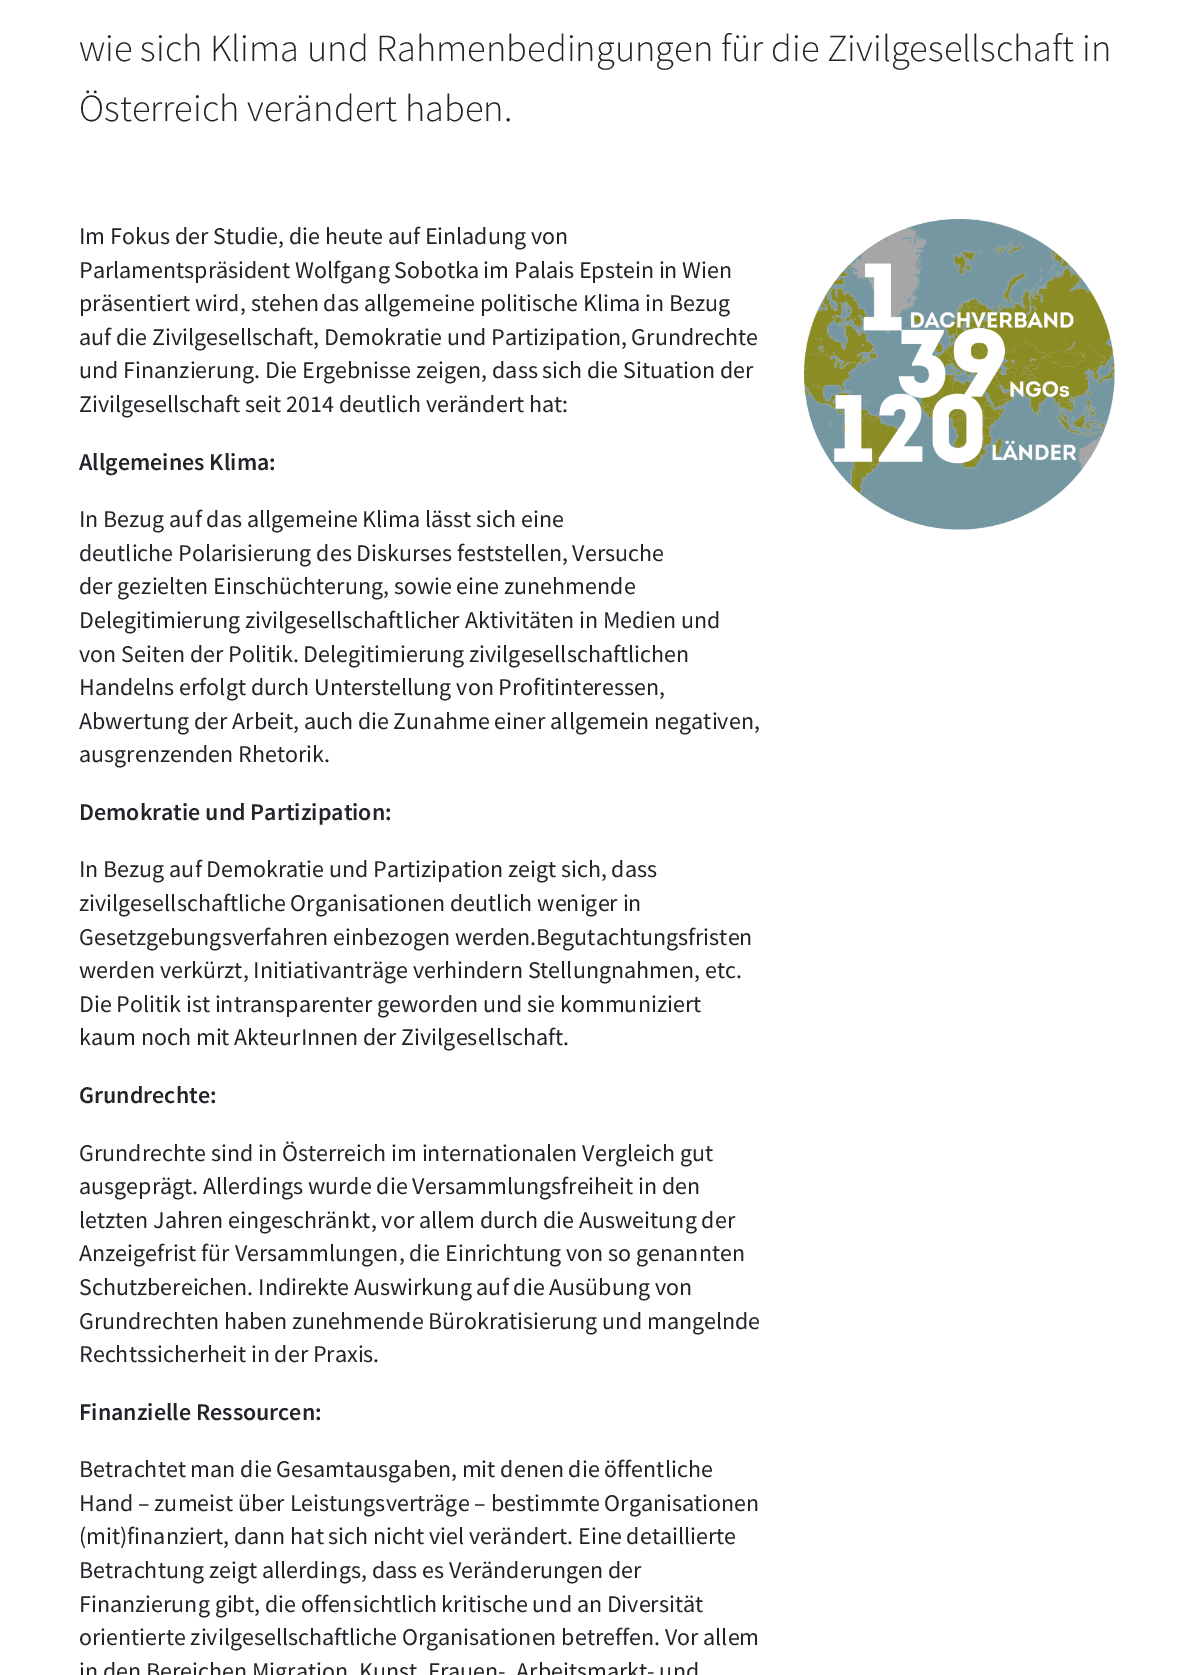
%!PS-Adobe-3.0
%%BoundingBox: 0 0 1192 1675
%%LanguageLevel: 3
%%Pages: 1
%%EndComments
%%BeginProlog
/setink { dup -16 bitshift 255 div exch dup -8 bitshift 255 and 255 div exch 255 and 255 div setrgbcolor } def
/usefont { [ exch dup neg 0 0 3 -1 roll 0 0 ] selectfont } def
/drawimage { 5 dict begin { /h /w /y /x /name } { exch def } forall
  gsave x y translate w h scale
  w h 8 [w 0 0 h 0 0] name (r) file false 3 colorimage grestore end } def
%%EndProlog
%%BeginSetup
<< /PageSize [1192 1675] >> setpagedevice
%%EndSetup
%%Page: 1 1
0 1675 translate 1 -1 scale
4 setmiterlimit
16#FFFFFF setink
0 0 1192 1675 rectfill
/SourceSansPro-Light 38.4 usefont
16#212529 setink
79 61 moveto (wie sich Klima und Rahmenbedingungen für die Zivilgesellschaft in) show
79 121 moveto (Österreich verändert haben.) show
/SourceSansPro-Regular 24 usefont
[
    [(Im Fokus der Studie, die heute auf Einladung von) 79 244]
    [(Parlamentspräsident Wolfgang Sobotka im Palais Epstein in Wien) 79 278]
    [(präsentiert wird, stehen das allgemeine politische Klima in Bezug) 79 311]
    [(auf die Zivilgesellschaft, Demokratie und Partizipation, Grundrechte) 79 345]
    [(und Finanzierung. Die Ergebnisse zeigen, dass sich die Situation der) 79 378]
    [(Zivilgesellschaft seit 2014 deutlich verändert hat:) 79 412]
] { aload pop moveto show } forall
/SourceSansPro-SemiBold 24 usefont
79 470 moveto (Allgemeines Klima:) show
/SourceSansPro-Regular 24 usefont
[
    [(In Bezug auf das allgemeine Klima lässt sich eine) 79 527]
    [(deutliche Polarisierung des Diskurses feststellen, Versuche) 79 561]
    [(der gezielten Einschüchterung, sowie eine zunehmende) 79 594]
    [(Delegitimierung zivilgesellschaftlicher Aktivitäten in Medien und) 79 628]
    [(von Seiten der Politik. Delegitimierung zivilgesellschaftlichen) 79 662]
    [(Handelns erfolgt durch Unterstellung von Profitinteressen,) 79 695]
    [(Abwertung der Arbeit, auch die Zunahme einer allgemein negativen,) 79 729]
    [(ausgrenzenden Rhetorik.) 79 762]
] { aload pop moveto show } forall
/SourceSansPro-SemiBold 24 usefont
79 820 moveto (Demokratie und Partizipation:) show
/SourceSansPro-Regular 24 usefont
[
    [(In Bezug auf Demokratie und Partizipation zeigt sich, dass) 79 877]
    [(zivilgesellschaftliche Organisationen deutlich weniger in) 79 911]
    [(Gesetzgebungsverfahren einbezogen werden.Begutachtungsfristen) 79 945]
    [(werden verkürzt, Initiativanträge verhindern Stellungnahmen, etc.) 79 978]
    [(Die Politik ist intransparenter geworden und sie kommuniziert) 79 1012]
    [(kaum noch mit AkteurInnen der Zivilgesellschaft.) 79 1045]
] { aload pop moveto show } forall
/SourceSansPro-SemiBold 24 usefont
79 1103 moveto (Grundrechte:) show
/SourceSansPro-Regular 24 usefont
[
    [(Grundrechte sind in Österreich im internationalen Vergleich gut) 79 1161]
    [(ausgeprägt. Allerdings wurde die Versammlungsfreiheit in den) 79 1194]
    [(letzten Jahren eingeschränkt, vor allem durch die Ausweitung der) 79 1228]
    [(Anzeigefrist für Versammlungen, die Einrichtung von so genannten) 79 1261]
    [(Schutzbereichen. Indirekte Auswirkung auf die Ausübung von) 79 1295]
    [(Grundrechten haben zunehmende Bürokratisierung und mangelnde) 79 1329]
    [(Rechtssicherheit in der Praxis.) 79 1362]
] { aload pop moveto show } forall
/SourceSansPro-SemiBold 24 usefont
79 1420 moveto (Finanzielle Ressourcen:) show
/SourceSansPro-Regular 24 usefont
[
    [(Betrachtet man die Gesamtausgaben, mit denen die öffentliche) 79 1477]
    [(Hand – zumeist über Leistungsverträge – bestimmte Organisationen) 79 1511]
    [(\(mit\)finanziert, dann hat sich nicht viel verändert. Eine detaillierte) 79 1544]
    [(Betrachtung zeigt allerdings, dass es Veränderungen der) 79 1578]
    [(Finanzierung gibt, die offensichtlich kritische und an Diversität) 79 1612]
    [(orientierte zivilgesellschaftliche Organisationen betreffen. Vor allem) 79 1645]
    [(in den Bereichen Migration, Kunst, Frauen-, Arbeitsmarkt- und) 79 1679]
] { aload pop moveto show } forall
(img1.raw) 804 219 311 311 drawimage
showpage
%%EOF
